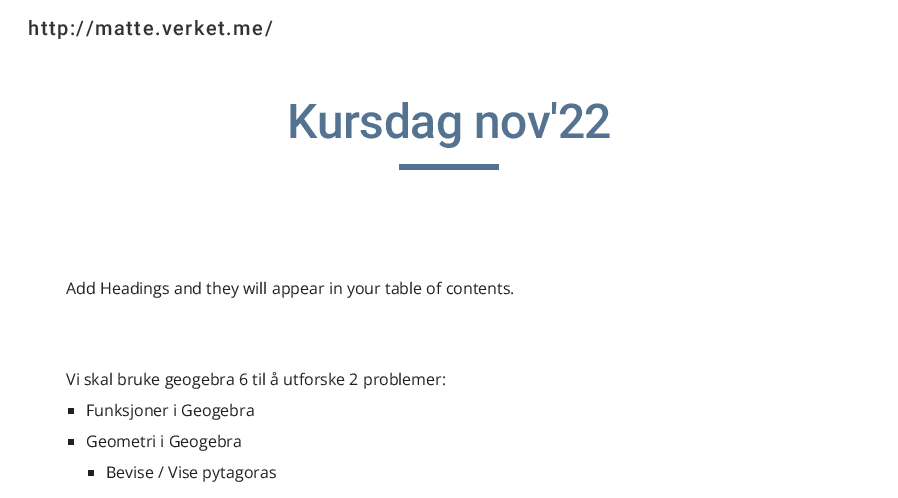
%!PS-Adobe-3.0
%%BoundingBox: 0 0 898 498
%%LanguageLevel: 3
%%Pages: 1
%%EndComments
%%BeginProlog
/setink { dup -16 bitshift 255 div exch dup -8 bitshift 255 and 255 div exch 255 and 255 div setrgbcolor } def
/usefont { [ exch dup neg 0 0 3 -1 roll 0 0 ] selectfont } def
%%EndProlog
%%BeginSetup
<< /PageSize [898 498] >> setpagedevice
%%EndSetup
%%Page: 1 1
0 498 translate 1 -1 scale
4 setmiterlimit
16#FFFFFF setink
0 0 898 498 rectfill
/Roboto-Medium 20 usefont
16#333333 setink
28 35 moveto 1.5 0 (http://matte.verket.me/) ashow
/Roboto-Medium 48 usefont
16#537391 setink
287 138 moveto -0.5 0 (Kursdag nov'22) ashow
399 164 100 6 rectfill
/OpenSans-Regular 16 usefont
16#212121 setink
66 294 moveto (Add Headings and they will appear in your table of contents.) show
66 385 moveto (Vi skal bruke geogebra 6 til å utforske 2 problemer:) show
68 408 6 6 rectfill
86 416 moveto (Funksjoner i Geogebra) show
68 439 6 6 rectfill
86 447 moveto (Geometri i Geogebra) show
88 470 6 6 rectfill
106 478 moveto (Bevise / Vise pytagoras) show
showpage
%%EOF
